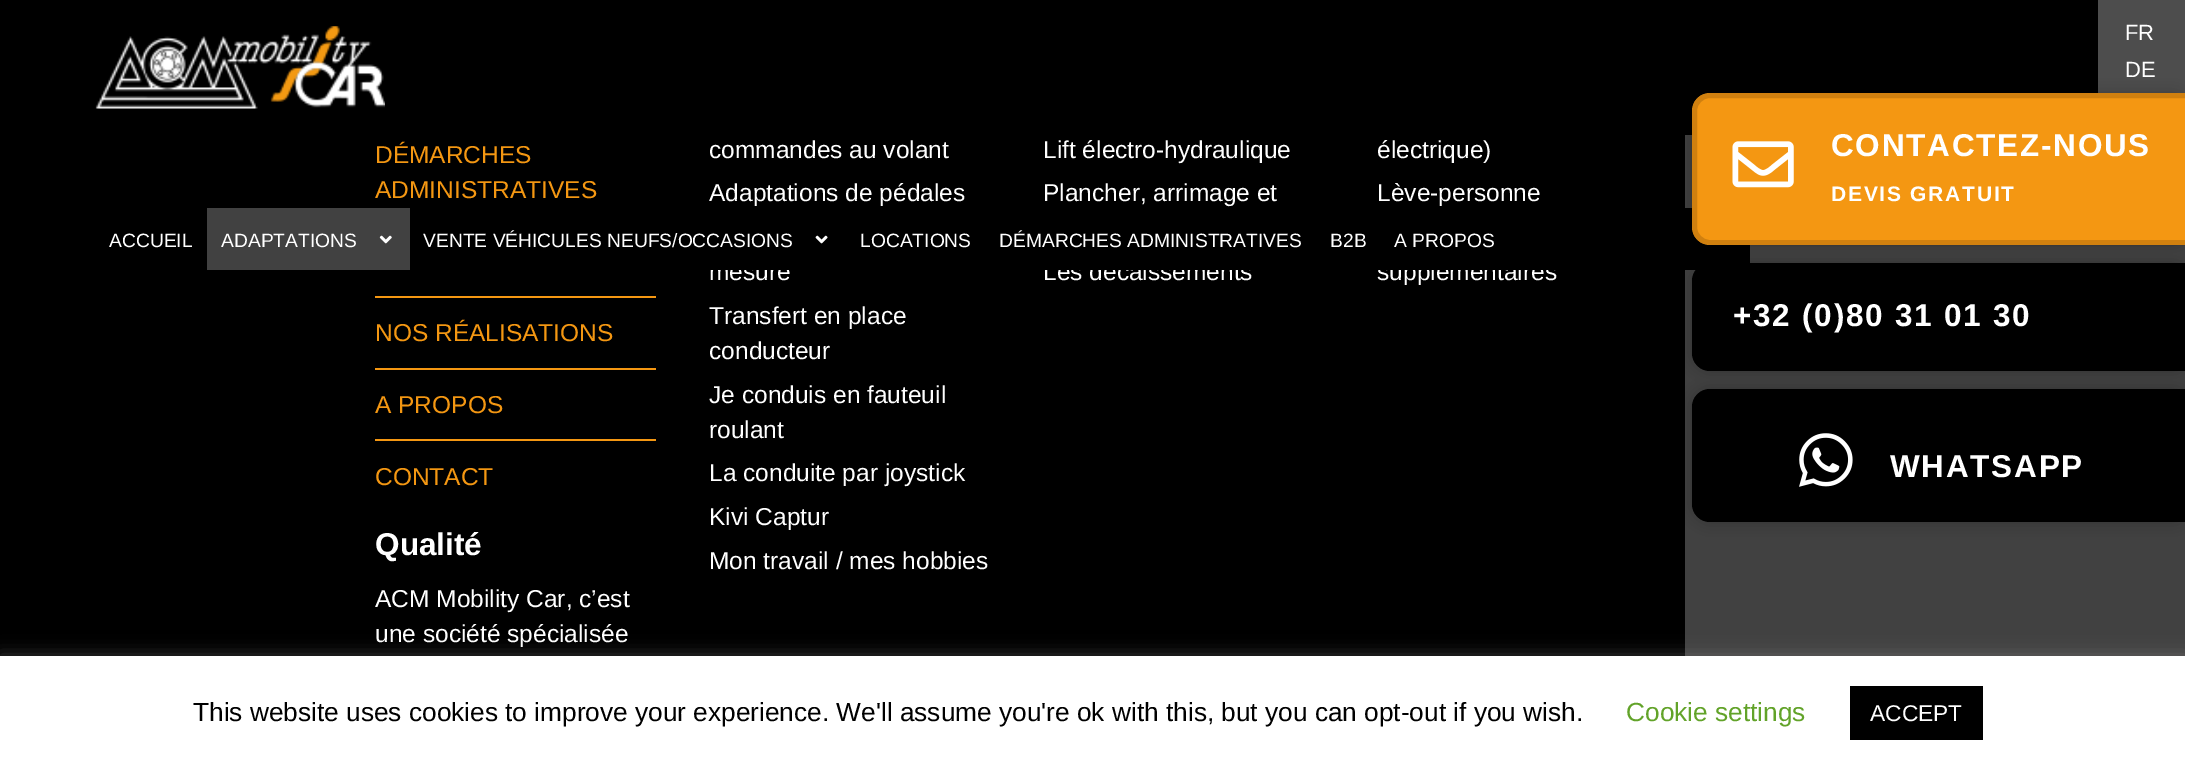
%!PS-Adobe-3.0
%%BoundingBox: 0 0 2185 769
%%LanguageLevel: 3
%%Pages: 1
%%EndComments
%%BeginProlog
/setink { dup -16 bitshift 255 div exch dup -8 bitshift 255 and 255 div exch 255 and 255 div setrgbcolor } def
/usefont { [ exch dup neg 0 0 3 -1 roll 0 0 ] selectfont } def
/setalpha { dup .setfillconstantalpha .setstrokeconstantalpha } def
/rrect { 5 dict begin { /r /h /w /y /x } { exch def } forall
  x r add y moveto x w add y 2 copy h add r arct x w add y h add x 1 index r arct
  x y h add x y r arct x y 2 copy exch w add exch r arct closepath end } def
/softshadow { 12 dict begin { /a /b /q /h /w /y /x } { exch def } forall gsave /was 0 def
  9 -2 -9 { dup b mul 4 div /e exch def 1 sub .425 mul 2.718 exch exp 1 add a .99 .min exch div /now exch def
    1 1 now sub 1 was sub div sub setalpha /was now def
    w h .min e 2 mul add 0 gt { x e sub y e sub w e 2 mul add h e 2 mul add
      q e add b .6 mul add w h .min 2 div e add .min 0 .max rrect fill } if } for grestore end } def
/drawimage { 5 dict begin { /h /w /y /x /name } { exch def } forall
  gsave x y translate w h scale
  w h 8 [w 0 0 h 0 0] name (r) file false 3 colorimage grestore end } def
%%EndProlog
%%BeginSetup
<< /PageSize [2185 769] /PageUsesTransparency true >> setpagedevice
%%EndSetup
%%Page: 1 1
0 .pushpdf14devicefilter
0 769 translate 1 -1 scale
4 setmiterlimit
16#000000 setink
0 0 2185 769 rectfill
16#4D4D4D setink
2098 0 87 93 rectfill
/LiberationSans-Regular 22 usefont
16#FFFFFF setink
2125 40 moveto (FR) show
2125 77 moveto (DE) show
(img1.raw) 95 26 290 83 drawimage
/LiberationSans-Regular 24.5 usefont
[
    [(mesure) 709 280]
    [(Les décaissements) 1043 280]
    [(supplémentaires) 1377 280]
] { aload pop moveto show } forall
16#414141 setink
1685 135 335 521 rectfill
16#000000 setink
710 208 1040 62 rectfill
/LiberationSans-Regular 19.25 usefont
16#FFFFFF setink
109 247 moveto (ACCUEIL) show
16#414141 setink
207 208 203 62 rectfill
16#FFFFFF setink
221 247 moveto (ADAPTATIONS) show
(img2.raw) 379 235 13 9 drawimage
423 247 moveto (VENTE VÉHICULES NEUFS/OCCASIONS) show
(img3.raw) 815 235 13 9 drawimage
[
    [(LOCATIONS) 860 247]
    [(DÉMARCHES ADMINISTRATIVES) 999 247]
    [(B2B) 1330 247]
    [(A PROPOS) 1394 247]
] { aload pop moveto show } forall
/LiberationSans-Regular 24.5 usefont
16#F49712 setink
375 163 moveto (DÉMARCHES) show
375 198 moveto (ADMINISTRATIVES) show
375 296 281 2 rectfill
375 368 281 2 rectfill
375 341 moveto (NOS RÉALISATIONS) show
375 439 281 2 rectfill
375 413 moveto (A PROPOS) show
375 485 moveto (CONTACT) show
/LiberationSans-Bold 31.5 usefont
16#FFFFFF setink
375 555 moveto (Qualité) show
/LiberationSans-Regular 24.5 usefont
[
    [(ACM Mobility Car, c’est) 375 607]
    [(une société spécialisée) 375 642]
    [(commandes au volant) 709 158]
    [(Adaptations de pédales) 709 201]
    [(Transfert en place) 709 324]
    [(conducteur) 709 359]
    [(Je conduis en fauteuil) 709 403]
    [(roulant) 709 438]
    [(La conduite par joystick) 709 481]
    [(Kivi Captur) 709 525]
    [(Mon travail / mes hobbies) 709 569]
    [(Lift électro-hydraulique) 1043 158]
    [(Plancher, arrimage et) 1043 201]
    [(électrique\)) 1377 158]
    [(Lève-personne) 1377 201]
] { aload pop moveto show } forall
16#414141 setink
2020 245 165 411 rectfill
16#000000 setink
1692 93 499 152 18 7 0.2 softshadow
16#F49712 setink
1710 93 moveto 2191 93 lineto 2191 245 lineto 1710 245 lineto 1700 245 1692 237 1692 227 curveto 1692 111 lineto 1692 101 1700 93 1710 93 curveto closepath fill
0.15 setalpha
16#000000 setink
5 setlinewidth
1710 95.5 moveto 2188.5 95.5 lineto 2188.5 242.5 lineto 1710 242.5 lineto 1701.5 242.5 1694.5 235.5 1694.5 227 curveto 1694.5 111 lineto 1694.5 102.5 1701.5 95.5 1710 95.5 curveto closepath stroke
1 setalpha
(img4.raw) 1732 141 62 47 drawimage
/LiberationSans-Bold 31.5 usefont
16#FFFFFF setink
1831 156 moveto 1.75 0 (CONTACTEZ-NOUS) ashow
/LiberationSans-Bold 21 usefont
1831 201 moveto 1.75 0 (DEVIS GRATUIT) ashow
16#000000 setink
1692 263 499 108 18 7 0.2 softshadow
1710 263 moveto 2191 263 lineto 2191 371 lineto 1710 371 lineto 1700 371 1692 363 1692 353 curveto 1692 281 lineto 1692 271 1700 263 1710 263 curveto closepath fill
/LiberationSans-Bold 31.5 usefont
16#FFFFFF setink
1733 326 moveto 1.75 0 (+32 \(0\)80 31 01 30) ashow
16#000000 setink
1692 389 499 133 18 7 0.2 softshadow
1710 389 moveto 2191 389 lineto 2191 522 lineto 1710 522 lineto 1700 522 1692 514 1692 504 curveto 1692 407 lineto 1692 397 1700 389 1710 389 curveto closepath fill
(img5.raw) 1799 433 54 54 drawimage
16#FFFFFF setink
1890 477 moveto 1.75 0 (WHATSAPP) ashow
16#ACABAB setink
0 655 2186 113 0 9 0.3 softshadow
16#FFFFFF setink
0 656 2185 113 rectfill
/LiberationSans-Regular 26.25 usefont
16#000000 setink
193 721 moveto (This website uses cookies to improve your experience. We'll assume you're ok with this, but you can opt-out if you wish.) show
16#62A329 setink
1626 721 moveto (Cookie settings) show
16#000000 setink
1850 686 133 54 rectfill
/LiberationSans-Regular 22.75 usefont
16#FFFFFF setink
1870 721 moveto (ACCEPT) show
.poppdf14devicefilter showpage
%%EOF
